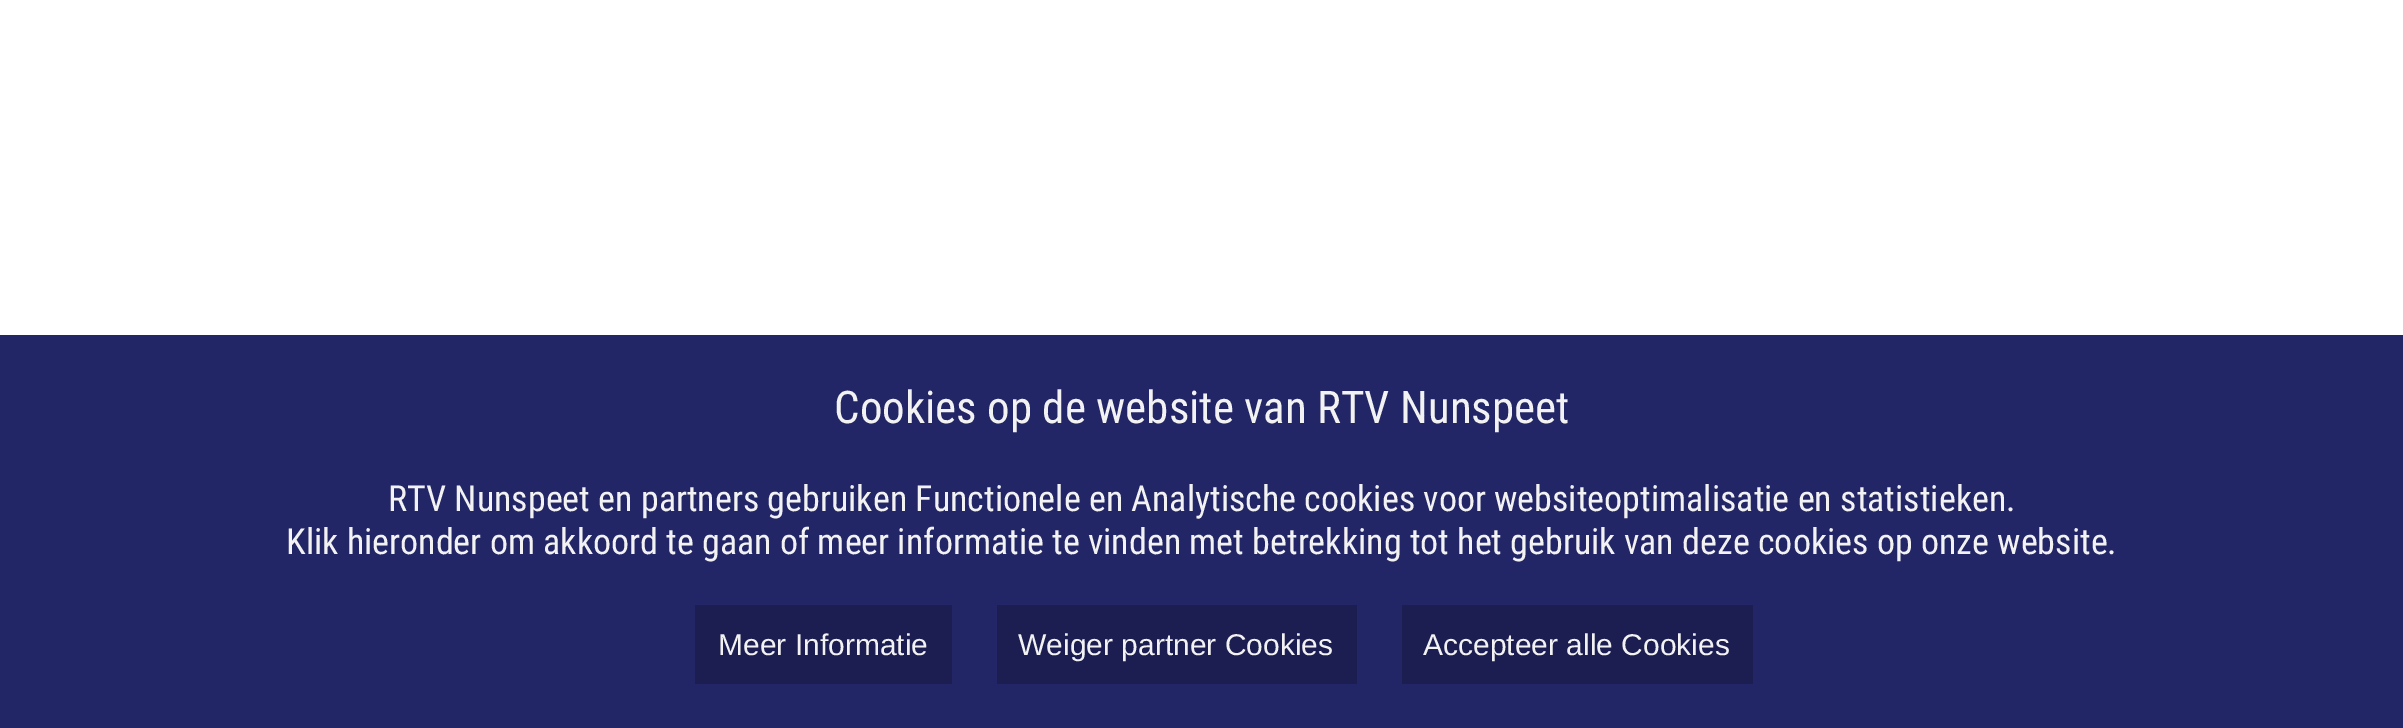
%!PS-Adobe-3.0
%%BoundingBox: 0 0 2403 728
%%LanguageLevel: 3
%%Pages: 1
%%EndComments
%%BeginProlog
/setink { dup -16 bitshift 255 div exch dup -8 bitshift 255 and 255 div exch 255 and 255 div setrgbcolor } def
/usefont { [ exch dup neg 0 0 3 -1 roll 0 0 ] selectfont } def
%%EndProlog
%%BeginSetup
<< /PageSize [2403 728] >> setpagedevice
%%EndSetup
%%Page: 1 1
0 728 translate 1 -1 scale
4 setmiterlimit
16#FFFFFF setink
0 0 2403 728 rectfill
16#232666 setink
0 335 2403 393 rectfill
/RobotoCondensed-Regular 45 usefont
16#F2F2F2 setink
834 423 moveto (Cookies op de website van RTV Nunspeet) show
/RobotoCondensed-Regular 36 usefont
388 511 moveto (RTV Nunspeet en partners gebruiken Functionele en Analytische cookies voor websiteoptimalisatie en statistieken.) show
286 554 moveto (Klik hieronder om akkoord te gaan of meer informatie te vinden met betrekking tot het gebruik van deze cookies op onze website.) show
16#1C1E51 setink
695 605 257 79 rectfill
/LiberationSans-Regular 30 usefont
16#F2F2F2 setink
718 655 moveto (Meer Informatie) show
16#1C1E51 setink
997 605 360 79 rectfill
16#F2F2F2 setink
1018 655 moveto (Weiger partner Cookies) show
16#1C1E51 setink
1402 605 351 79 rectfill
16#F2F2F2 setink
1423 655 moveto (Accepteer alle Cookies) show
showpage
%%EOF
